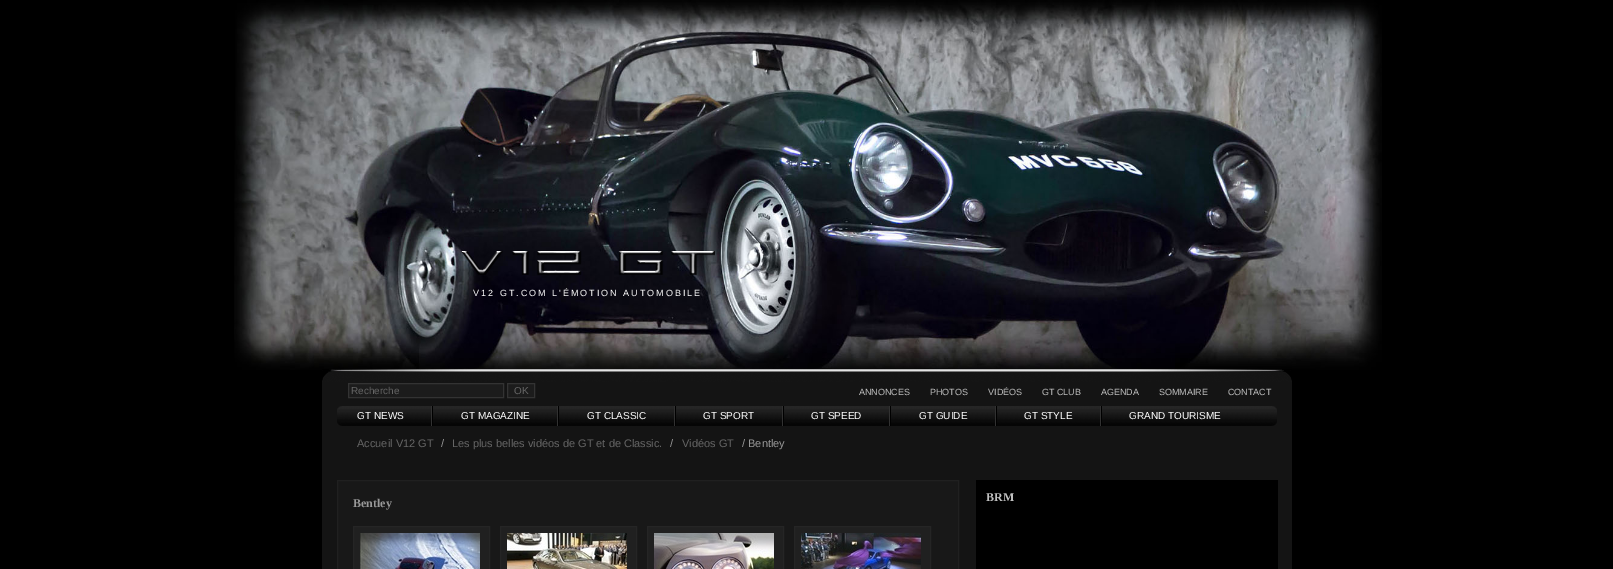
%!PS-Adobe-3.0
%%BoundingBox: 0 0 1613 569
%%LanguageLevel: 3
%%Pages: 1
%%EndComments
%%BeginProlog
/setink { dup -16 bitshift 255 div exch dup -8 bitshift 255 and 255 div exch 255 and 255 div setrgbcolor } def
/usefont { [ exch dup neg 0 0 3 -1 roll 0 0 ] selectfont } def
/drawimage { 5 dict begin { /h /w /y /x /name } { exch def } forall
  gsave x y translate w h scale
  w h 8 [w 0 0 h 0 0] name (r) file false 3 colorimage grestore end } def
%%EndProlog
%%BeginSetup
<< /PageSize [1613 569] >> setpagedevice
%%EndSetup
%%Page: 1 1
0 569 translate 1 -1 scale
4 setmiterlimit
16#000000 setink
0 0 1613 569 rectfill
(img1.raw) 234 0 1148 370 drawimage
(img2.raw) 461 251 254 24 drawimage
/LiberationSans-Regular 9 usefont
16#FFFFFF setink
473 296 moveto 2 0 (V12 GT.COM L'ÉMOTION AUTOMOBILE) ashow
(img3.raw) 322 369 970 13 drawimage
16#141414 setink
322 382 970 187 rectfill
16#1C1C1C setink
348.5 383.5 moveto 503.5 383.5 lineto 503.5 397.5 lineto 348.5 397.5 lineto closepath gsave fill grestore
16#333333 setink
stroke
/LiberationSans-Regular 10 usefont
16#666666 setink
351 394 moveto (Recherche) show
16#1C1C1C setink
507.5 383.5 moveto 534.5 383.5 lineto 534.5 397.5 lineto 507.5 397.5 lineto closepath gsave fill grestore
16#333333 setink
stroke
16#666666 setink
514 394 moveto (OK) show
/LiberationSans-Regular 9 usefont
16#C0C0C0 setink
[
    [(ANNONCES) 859 395]
    [(PHOTOS) 930 395]
    [(VIDÉOS) 988 395]
    [(GT CLUB) 1042 395]
    [(AGENDA) 1101 395]
    [(SOMMAIRE) 1159 395]
    [(CONTACT) 1228 395]
] { aload pop moveto show } forall
(img4.raw) 337 406 5 20 drawimage
(img5.raw) 342 406 930 20 drawimage
/LiberationSans-Regular 10 usefont
16#FFFFFF setink
357 419 moveto (GT NEWS) show
(img6.raw) 431 406 2 20 drawimage
461 419 moveto (GT MAGAZINE) show
(img6.raw) 557 406 2 20 drawimage
587 419 moveto (GT CLASSIC) show
(img6.raw) 674 406 2 20 drawimage
703 419 moveto (GT SPORT) show
(img6.raw) 782 406 2 20 drawimage
811 419 moveto (GT SPEED) show
(img6.raw) 889 406 2 20 drawimage
919 419 moveto (GT GUIDE) show
(img6.raw) 995 406 2 20 drawimage
1024 419 moveto (GT STYLE) show
(img6.raw) 1100 406 2 20 drawimage
1129 419 moveto (GRAND TOURISME) show
(img7.raw) 1272 406 5 20 drawimage
/LiberationSans-Regular 11 usefont
16#666666 setink
357 447 moveto (Accueil V12 GT) show
16#999999 setink
441 447 moveto (/) show
16#666666 setink
452 447 moveto (Les plus belles vidéos de GT et de Classic.) show
16#999999 setink
670 447 moveto (/) show
16#666666 setink
682 447 moveto (Vidéos GT) show
16#999999 setink
742 447 moveto (/ Bentley) show
16#181818 setink
337.5 480.5 moveto 958.5 480.5 lineto 958.5 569.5 lineto 337.5 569.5 lineto closepath gsave fill grestore
16#202020 setink
stroke
/LiberationSerif-Bold 12 usefont
16#999999 setink
353 507 moveto (Bentley) show
16#202020 setink
353.5 526.5 moveto 489.5 526.5 lineto 489.5 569.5 lineto 353.5 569.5 lineto closepath gsave fill grestore
16#252525 setink
stroke
(img8.raw) 360 533 120 36 drawimage
16#202020 setink
500.5 526.5 moveto 636.5 526.5 lineto 636.5 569.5 lineto 500.5 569.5 lineto closepath gsave fill grestore
16#252525 setink
stroke
(img9.raw) 507 533 120 36 drawimage
16#202020 setink
647.5 526.5 moveto 783.5 526.5 lineto 783.5 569.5 lineto 647.5 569.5 lineto closepath gsave fill grestore
16#252525 setink
stroke
(img10.raw) 654 533 120 36 drawimage
16#202020 setink
794.5 526.5 moveto 930.5 526.5 lineto 930.5 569.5 lineto 794.5 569.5 lineto closepath gsave fill grestore
16#252525 setink
stroke
(img11.raw) 801 533 120 36 drawimage
16#000000 setink
976 480 302 89 rectfill
16#C0C0C0 setink
986 501 moveto (BRM) show
showpage
%%EOF
